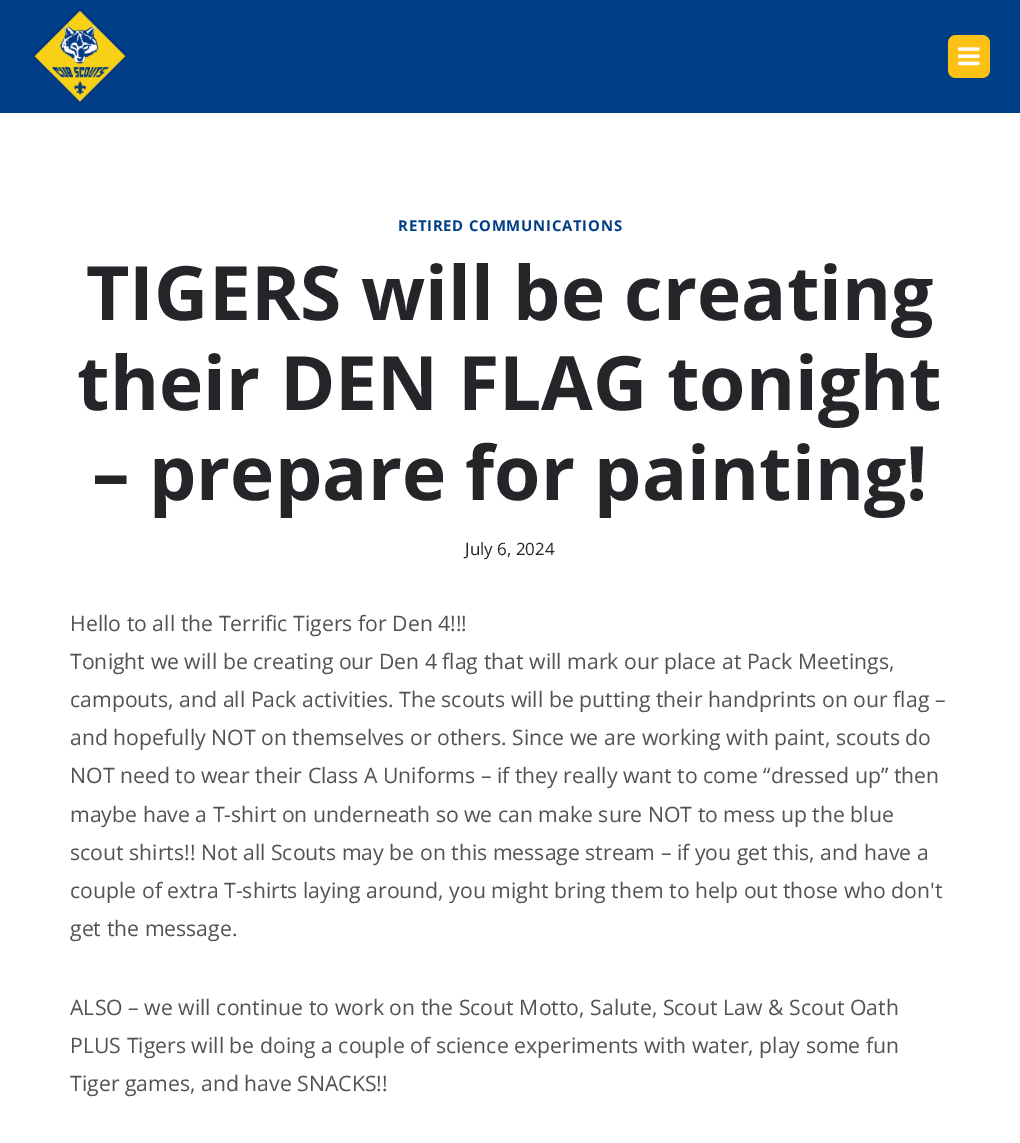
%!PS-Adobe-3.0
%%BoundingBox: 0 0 1020 1143
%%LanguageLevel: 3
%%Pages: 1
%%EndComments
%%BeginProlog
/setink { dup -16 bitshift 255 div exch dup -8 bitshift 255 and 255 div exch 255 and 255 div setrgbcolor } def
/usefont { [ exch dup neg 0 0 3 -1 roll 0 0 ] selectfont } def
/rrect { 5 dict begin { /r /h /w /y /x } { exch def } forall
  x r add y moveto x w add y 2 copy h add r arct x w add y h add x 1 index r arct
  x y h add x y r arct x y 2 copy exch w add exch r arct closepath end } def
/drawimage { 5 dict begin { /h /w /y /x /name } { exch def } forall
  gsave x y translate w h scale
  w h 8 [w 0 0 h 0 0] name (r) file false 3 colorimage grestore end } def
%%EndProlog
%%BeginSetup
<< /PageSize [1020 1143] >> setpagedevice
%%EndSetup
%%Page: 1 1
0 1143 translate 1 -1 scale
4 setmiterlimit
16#FFFFFF setink
0 0 1020 1143 rectfill
16#003F87 setink
0 0 1020 113 rectfill
(img1.raw) 30 7 100 99 drawimage
16#FDC116 setink
948 35 42 43 8 rrect fill
(img2.raw) 958 47 22 19 drawimage
/OpenSans-Bold 14.9 usefont
16#003F87 setink
398 231 moveto 0.75 0 (RETIRED COMMUNICATIONS) ashow
/OpenSans-Bold 75 usefont
16#232528 setink
[
    [(TIGERS will be creating) 86 320]
    [(their DEN FLAG tonight) 77 410]
    [(– prepare for painting!) 92 500]
] { aload pop moveto show } forall
/OpenSans-Regular 17 usefont
465 555 moveto (July 6, 2024) show
/OpenSans-Regular 21.25 usefont
16#515354 setink
[
    [(Hello to all the Terrific Tigers for Den 4!!!) 70 631]
    [(Tonight we will be creating our Den 4 flag that will mark our place at Pack Meetings,) 70 669]
    [(campouts, and all Pack activities. The scouts will be putting their handprints on our flag –) 70 707]
    [(and hopefully NOT on themselves or others. Since we are working with paint, scouts do) 70 745]
    [(NOT need to wear their Class A Uniforms – if they really want to come “dressed up” then) 70 783]
    [(maybe have a T-shirt on underneath so we can make sure NOT to mess up the blue) 70 822]
    [(scout shirts!! Not all Scouts may be on this message stream – if you get this, and have a) 70 860]
    [(couple of extra T-shirts laying around, you might bring them to help out those who don't) 70 898]
    [(get the message.) 70 936]
    [(ALSO – we will continue to work on the Scout Motto, Salute, Scout Law & Scout Oath) 70 1015]
    [(PLUS Tigers will be doing a couple of science experiments with water, play some fun) 70 1053]
    [(Tiger games, and have SNACKS!!) 70 1091]
] { aload pop moveto show } forall
showpage
%%EOF
